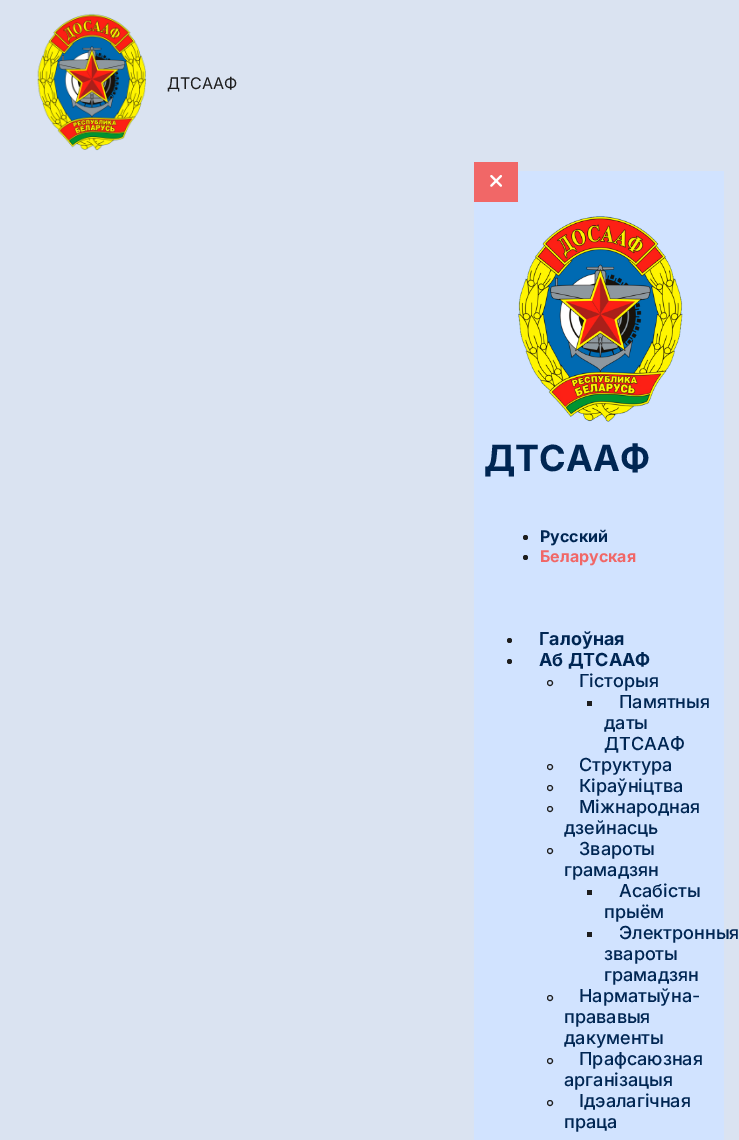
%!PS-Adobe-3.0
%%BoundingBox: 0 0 739 1140
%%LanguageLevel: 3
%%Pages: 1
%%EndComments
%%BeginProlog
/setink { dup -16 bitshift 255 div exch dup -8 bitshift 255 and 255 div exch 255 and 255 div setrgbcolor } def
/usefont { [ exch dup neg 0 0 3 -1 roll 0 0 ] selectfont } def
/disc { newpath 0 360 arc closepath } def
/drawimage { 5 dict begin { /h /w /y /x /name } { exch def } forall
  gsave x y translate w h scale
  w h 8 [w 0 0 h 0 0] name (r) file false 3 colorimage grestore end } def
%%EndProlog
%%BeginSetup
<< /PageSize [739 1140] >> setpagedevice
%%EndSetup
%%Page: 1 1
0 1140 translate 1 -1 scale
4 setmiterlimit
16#DAE3F1 setink
0 0 739 1140 rectfill
(img1.raw) 37 13 110 138 drawimage
/Inter-Regular 16 usefont
16#1E1E1E setink
167 89 moveto (ДТСААФ) show
16#D1E3FF setink
474 171 250 969 rectfill
16#F16767 setink
474 162 44 40 rectfill
(img2.raw) 490 175 12 12 drawimage
(img3.raw) 518 216 165 206 drawimage
/Inter-Bold 36 usefont
16#002653 setink
484 471 moveto (ДТСААФ) show
16#1E1E1E setink
525.5 537.5 2.5 disc fill
/Inter-Bold 16 usefont
16#002653 setink
540 542 moveto (Русский) show
16#1E1E1E setink
525.5 557.5 2.5 disc fill
16#F16767 setink
540 562 moveto (Беларуская) show
16#1E1E1E setink
509.5 640.5 2.5 disc fill
/Inter-Bold 18 usefont
16#002653 setink
539 645 moveto (Галоўная) show
16#1E1E1E setink
509.5 661.5 2.5 disc fill
16#002653 setink
539 666 moveto (Аб ДТСААФ) show
16#1E1E1E setink
550 683 2.5 disc stroke
/Inter-Medium 18 usefont
16#002653 setink
579 687 moveto (Гісторыя) show
16#1E1E1E setink
587 701 5 5 rectfill
16#002653 setink
[
    [(Памятныя) 619 708]
    [(даты) 604 729]
    [(ДТСААФ) 604 750]
] { aload pop moveto show } forall
16#1E1E1E setink
550 767 2.5 disc stroke
16#002653 setink
579 771 moveto (Структура) show
16#1E1E1E setink
550 788 2.5 disc stroke
16#002653 setink
579 792 moveto (Кіраўніцтва) show
16#1E1E1E setink
550 809 2.5 disc stroke
16#002653 setink
579 813 moveto (Міжнародная) show
564 834 moveto (дзейнасць) show
16#1E1E1E setink
550 851 2.5 disc stroke
16#002653 setink
579 855 moveto (Звароты) show
564 876 moveto (грамадзян) show
16#1E1E1E setink
587 890 5 5 rectfill
16#002653 setink
619 897 moveto (Асабісты) show
604 918 moveto (прыём) show
16#1E1E1E setink
587 932 5 5 rectfill
16#002653 setink
[
    [(Электронныя) 619 939]
    [(звароты) 604 960]
    [(грамадзян) 604 981]
] { aload pop moveto show } forall
16#1E1E1E setink
550 998 2.5 disc stroke
16#002653 setink
[
    [(Нарматыўна-) 579 1002]
    [(прававыя) 564 1023]
    [(дакументы) 564 1044]
] { aload pop moveto show } forall
16#1E1E1E setink
550 1061 2.5 disc stroke
16#002653 setink
579 1065 moveto (Прафсаюзная) show
564 1086 moveto (арганізацыя) show
16#1E1E1E setink
550 1103 2.5 disc stroke
16#002653 setink
579 1107 moveto (Ідэалагічная) show
564 1128 moveto (праца) show
showpage
%%EOF
